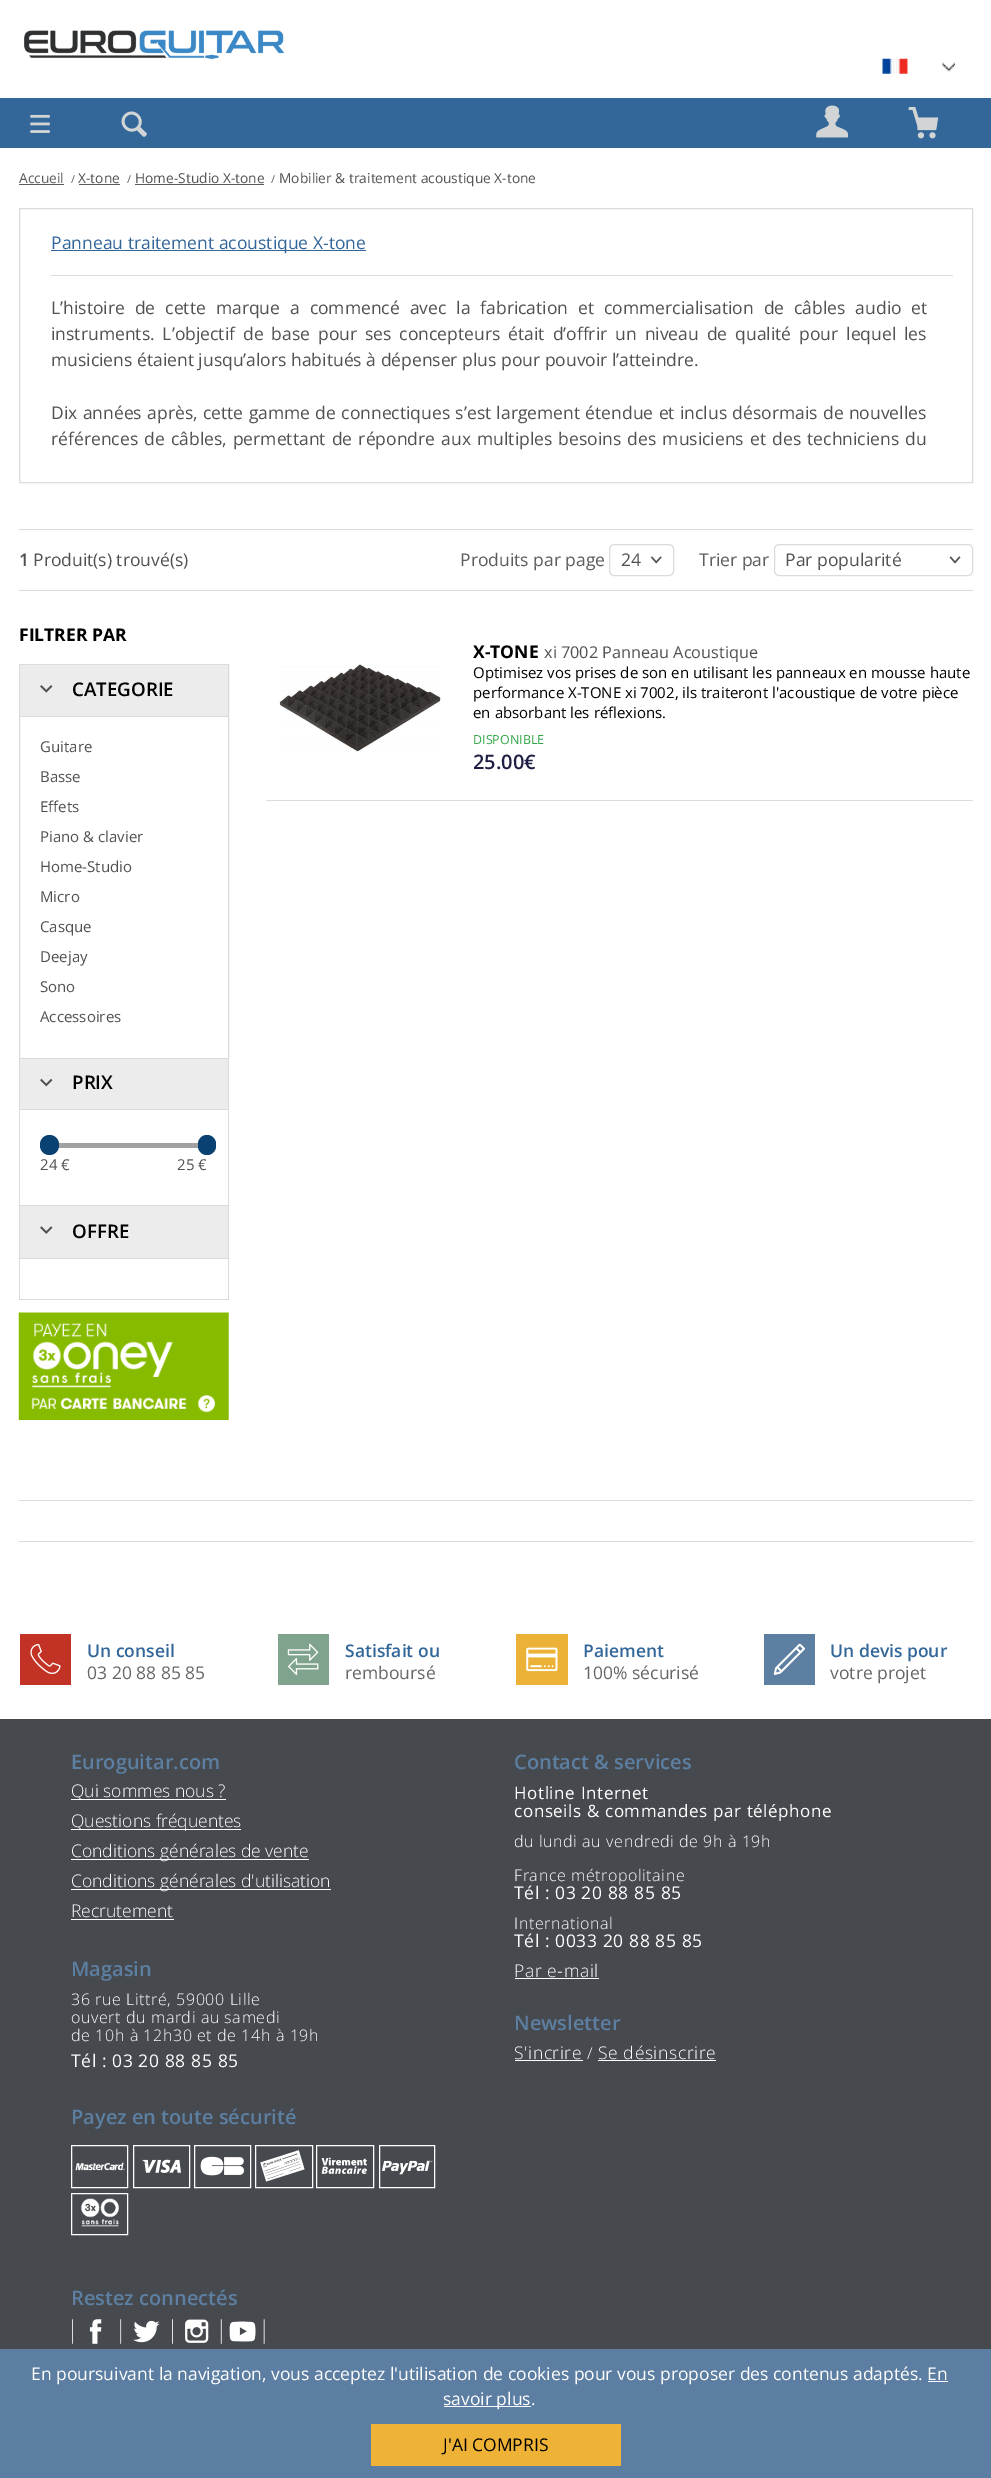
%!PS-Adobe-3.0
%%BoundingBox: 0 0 991 2478
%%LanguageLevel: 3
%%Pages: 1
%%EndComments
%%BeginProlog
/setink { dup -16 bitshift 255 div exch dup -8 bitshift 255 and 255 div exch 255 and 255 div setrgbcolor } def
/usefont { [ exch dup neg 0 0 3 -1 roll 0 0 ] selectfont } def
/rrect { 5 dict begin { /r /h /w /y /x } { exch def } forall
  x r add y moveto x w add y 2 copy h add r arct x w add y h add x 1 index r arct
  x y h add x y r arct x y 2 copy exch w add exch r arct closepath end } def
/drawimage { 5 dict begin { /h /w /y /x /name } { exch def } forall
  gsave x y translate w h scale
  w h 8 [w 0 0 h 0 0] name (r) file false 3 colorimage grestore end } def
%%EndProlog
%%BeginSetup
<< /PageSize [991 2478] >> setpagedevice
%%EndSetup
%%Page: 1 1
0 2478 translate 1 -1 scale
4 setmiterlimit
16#FFFFFF setink
0 0 991 2478 rectfill
(img1.raw) 24 30 260 29 drawimage
16#336699 setink
0 98 991 50 rectfill
(img2.raw) 882 58 26 16 drawimage
(img3.raw) 942 62 13 10 drawimage
(img4.raw) 30 114 20 19 drawimage
(img5.raw) 121 111 26 26 drawimage
(img6.raw) 816 105 33 33 drawimage
(img7.raw) 908 107 31 32 drawimage
/OpenSans-Regular 13.75 usefont
16#5C5C5C setink
19 183 moveto (Accueil) show
19 184 45 1 rectfill
/OpenSans-Regular 11 usefont
71 183 moveto (/) show
/OpenSans-Regular 13.75 usefont
16#515151 setink
78 183 moveto (X-tone) show
16#5C5C5C setink
79 184 41 1 rectfill
/OpenSans-Regular 11 usefont
127 183 moveto (/) show
/OpenSans-Regular 13.75 usefont
16#515151 setink
135 183 moveto (Home-Studio X-tone) show
16#5C5C5C setink
135 184 129 1 rectfill
/OpenSans-Regular 11 usefont
271 183 moveto (/) show
/OpenSans-Regular 13.75 usefont
16#515151 setink
279 183 moveto (Mobilier & traitement acoustique X-tone) show
16#DBDBDB setink
19.5 208.5 953 274 rectstroke
16#336699 setink
51 250 315 1 rectfill
/OpenSans-Regular 17.5 usefont
51 249 moveto (Panneau traitement acoustique X-tone) show
16#DBDBDB setink
51 275 902 1 rectfill
16#515151 setink
51 314 moveto 5.4 0 32 (L’histoire de cette marque a commencé avec la fabrication et commercialisation de câbles audio et) widthshow
51 340 moveto 3.4 0 32 (instruments. L’objectif de base pour ses concepteurs était d’offrir un niveau de qualité pour lequel les) widthshow
51 366 moveto (musiciens étaient jusqu’alors habitués à dépenser plus pour pouvoir l’atteindre.) show
51 419 moveto 0.8 0 32 (Dix années après, cette gamme de connectiques s’est largement étendue et inclus désormais de nouvelles) widthshow
51 445 moveto 1.6 0 32 (références de câbles, permettant de répondre aux multiples besoins des musiciens et des techniciens du) widthshow
16#DBDBDB setink
19 529 954 1 rectfill
19 590 954 1 rectfill
/OpenSans-SemiBold 17.5 usefont
16#515151 setink
19 566 moveto (1) show
/OpenSans-Regular 17.5 usefont
33 566 moveto (Produit\(s\) trouvé\(s\)) show
16#5C5C5C setink
460 566 moveto (Produits par page) show
(img8.raw) 650 556 12 8 drawimage
16#DBDBDB setink
609.5 544.5 64 31 4.5 rrect stroke
16#515151 setink
621 566 moveto (24) show
16#5C5C5C setink
699 566 moveto (Trier par) show
(img9.raw) 949 556 12 8 drawimage
16#DBDBDB setink
774.5 544.5 198 31 4.5 rrect stroke
gsave
785 550 155 20 rectclip
16#515151 setink
785 566 moveto (Par popularité) show
grestore
/OpenSans-Bold 17.5 usefont
16#000000 setink
19 641 moveto (FILTRER PAR) show
16#DBDBDB setink
19.5 664.5 209 394 rectstroke
16#ECECEC setink
20 665 208 51 rectfill
(img10.raw) 40 685 13 8 drawimage
/OpenSans-SemiBold 18.75 usefont
16#000000 setink
72 696 moveto (CATEGORIE) show
16#DBDBDB setink
20 716 208 1 rectfill
/OpenSans-Regular 15 usefont
16#515151 setink
[
    [(Guitare) 40 752]
    [(Basse) 40 782]
    [(Effets) 40 812]
    [(Piano & clavier) 40 842]
    [(Home-Studio) 40 872]
    [(Micro) 40 902]
    [(Casque) 40 932]
    [(Deejay) 40 962]
    [(Sono) 40 992]
    [(Accessoires) 40 1022]
] { aload pop moveto show } forall
[
    [228 1059 1 241 16#DBDBDB]
    [19 1205 210 1 16#DBDBDB]
    [19 1059 1 147 16#DBDBDB]
    [20 1059 208 50 16#ECECEC]
] { aload pop setink rectfill } forall
(img11.raw) 40 1078 13 9 drawimage
/OpenSans-SemiBold 18.75 usefont
16#000000 setink
72 1089 moveto (PRIX) show
16#DBDBDB setink
20 1109 208 1 rectfill
16#A1A1A1 setink
40 1143 159 5 rectfill
16#094173 setink
40 1135 19 20 9.5 rrect fill
198 1135 18 20 9 rrect fill
/OpenSans-Regular 15 usefont
16#515151 setink
40 1170 moveto (24 €) show
177 1170 moveto (25 €) show
[
    [19 1299 210 1 16#DBDBDB]
    [19 1206 1 94 16#DBDBDB]
    [20 1206 208 52 16#ECECEC]
] { aload pop setink rectfill } forall
(img12.raw) 40 1226 13 8 drawimage
/OpenSans-SemiBold 18.75 usefont
16#000000 setink
72 1238 moveto (OFFRE) show
16#DBDBDB setink
20 1258 208 1 rectfill
(img13.raw) 18 1312 211 108 drawimage
16#DCDCDC setink
266 800 707 1 rectfill
(img14.raw) 279 664 162 88 drawimage
/OpenSans-Bold 17.5 usefont
16#000000 setink
473 658 moveto (X-TONE) show
/OpenSans-Regular 16.25 usefont
16#515151 setink
544 658 moveto (xi 7002 Panneau Acoustique) show
/OpenSans-Regular 15 usefont
16#000000 setink
[
    [(Optimisez vos prises de son en utilisant les panneaux en mousse haute) 473 678]
    [(performance X-TONE xi 7002, ils traiteront l'acoustique de votre pièce) 473 698]
    [(en absorbant les réflexions.) 473 718]
] { aload pop moveto show } forall
/OpenSans-Regular 12.5 usefont
16#2EA444 setink
473 744 moveto (DISPONIBLE) show
/OpenSans-SemiBold 20 usefont
16#1F1F45 setink
473 769 moveto (25.00€) show
[
    [19 1500 954 1 16#DBDBDB]
    [19 1541 954 1 16#DBDBDB]
    [20 1634 51 51 16#C23325]
] { aload pop setink rectfill } forall
(img15.raw) 30 1643 31 31 drawimage
/OpenSans-SemiBold 17.5 usefont
16#336699 setink
87 1657 moveto (Un conseil) show
/OpenSans-Regular 17.5 usefont
16#666666 setink
87 1679 moveto (03 20 88 85 85) show
16#80A38D setink
278 1634 51 51 rectfill
(img16.raw) 287 1643 32 32 drawimage
/OpenSans-SemiBold 17.5 usefont
16#336699 setink
345 1657 moveto (Satisfait ou) show
/OpenSans-Regular 17.5 usefont
16#666666 setink
345 1679 moveto (remboursé) show
16#ECB237 setink
516 1634 52 51 rectfill
(img17.raw) 526 1647 32 25 drawimage
/OpenSans-SemiBold 17.5 usefont
16#336699 setink
583 1657 moveto (Paiement) show
/OpenSans-Regular 17.5 usefont
16#666666 setink
583 1679 moveto (100% sécurisé) show
16#5D7FA2 setink
764 1634 51 51 rectfill
(img18.raw) 773 1643 32 32 drawimage
/OpenSans-SemiBold 17.5 usefont
16#336699 setink
830 1657 moveto (Un devis pour) show
/OpenSans-Regular 17.5 usefont
16#666666 setink
830 1679 moveto (votre projet) show
16#464A4F setink
0 1719 991 630 rectfill
/OpenSans-SemiBold 20 usefont
16#5D7FA2 setink
71 1769 moveto (Euroguitar.com) show
16#FFFFFF setink
71 1799 155 1 rectfill
/OpenSans-Light 17.5 usefont
71 1797 moveto (Qui sommes nous ?) show
71 1829 170 1 rectfill
71 1827 moveto (Questions fréquentes) show
71 1859 238 1 rectfill
71 1857 moveto (Conditions générales de vente) show
71 1889 260 1 rectfill
71 1887 moveto (Conditions générales d'utilisation) show
71 1917 moveto (Recrutement) show
71 1919 103 1 rectfill
/OpenSans-SemiBold 20 usefont
16#5D7FA2 setink
71 1976 moveto (Magasin) show
/OpenSans-Light 16 usefont
16#FFFFFF setink
71 2005 moveto 0.6 0 (36 rue Littré, 59000 Lille) ashow
71 2023 moveto 0.6 0 (ouvert du mardi au samedi) ashow
71 2041 moveto 0.6 0 (de 10h à 12h30 et de 14h à 19h) ashow
/OpenSans-Regular 17.5 usefont
71 2067 moveto 0.6 0 (Tél : 03 20 88 85 85) ashow
/OpenSans-SemiBold 20 usefont
16#5D7FA2 setink
514 1769 moveto (Contact & services) show
/OpenSans-Regular 17 usefont
16#FFFFFF setink
514 1799 moveto 0.6 0 (Hotline Internet) ashow
514 1817 moveto 0.6 0 (conseils & commandes par téléphone) ashow
/OpenSans-Light 16 usefont
514 1847 moveto 0.6 0 (du lundi au vendredi de 9h à 19h) ashow
514 1881 moveto 0.6 0 (France métropolitaine) ashow
/OpenSans-Regular 17.5 usefont
514 1899 moveto 0.6 0 (Tél : 03 20 88 85 85) ashow
/OpenSans-Light 16 usefont
514 1929 moveto 0.6 0 (International) ashow
/OpenSans-Regular 17.5 usefont
514 1947 moveto 0.6 0 (Tél : 0033 20 88 85 85) ashow
/OpenSans-Light 17.5 usefont
514 1977 moveto 0.6 0 (Par e-mail) ashow
515 1978 84 1 rectfill
/OpenSans-SemiBold 20 usefont
16#5D7FA2 setink
514 2030 moveto (Newsletter) show
/OpenSans-Light 17.5 usefont
16#FFFFFF setink
514 2059 moveto 0.6 0 (S'incrire) ashow
515 2060 68 1 rectfill
/OpenSans-Light 16 usefont
587 2059 moveto 0.6 0 (/) ashow
/OpenSans-Light 17.5 usefont
598 2059 moveto 0.6 0 (Se désinscrire) ashow
598 2060 118 1 rectfill
/OpenSans-SemiBold 20 usefont
16#5D7FA2 setink
71 2124 moveto (Payez en toute sécurité) show
16#FFFFFF setink
71.5 2145.5 56 42 rectstroke
(img19.raw) 75 2162 50 9 drawimage
133.5 2145.5 56 42 rectstroke
(img20.raw) 142 2159 39 14 drawimage
194.5 2145.5 56 42 rectstroke
(img21.raw) 200 2156 44 20 drawimage
255.5 2145.5 57 42 rectstroke
(img22.raw) 260 2150 45 32 drawimage
316.5 2145.5 57 42 rectstroke
(img23.raw) 321 2157 46 17 drawimage
379.5 2145.5 55 42 rectstroke
(img24.raw) 382 2160 51 15 drawimage
71.5 2193.5 56 41 rectstroke
(img25.raw) 81 2198 38 29 drawimage
16#5D7FA2 setink
71 2305 moveto (Restez connectés) show
(img26.raw) 72 2319 30 25 drawimage
(img27.raw) 120 2319 40 25 drawimage
(img28.raw) 172 2319 37 25 drawimage
(img29.raw) 220 2319 45 25 drawimage
16#5C7EA2 setink
0 2349 991 129 rectfill
/OpenSans-Regular 17.5 usefont
16#FFFFFF setink
31 2380 moveto (En poursuivant la navigation, vous acceptez l'utilisation de cookies pour vous proposer des contenus adaptés. En) show
444 2406 87 1 rectfill
443 2405 moveto (savoir plus.) show
928 2381 20 1 rectfill
16#EDB236 setink
371 2424 250 42 rectfill
16#000000 setink
443 2451 moveto (J'AI COMPRIS) show
showpage
%%EOF
